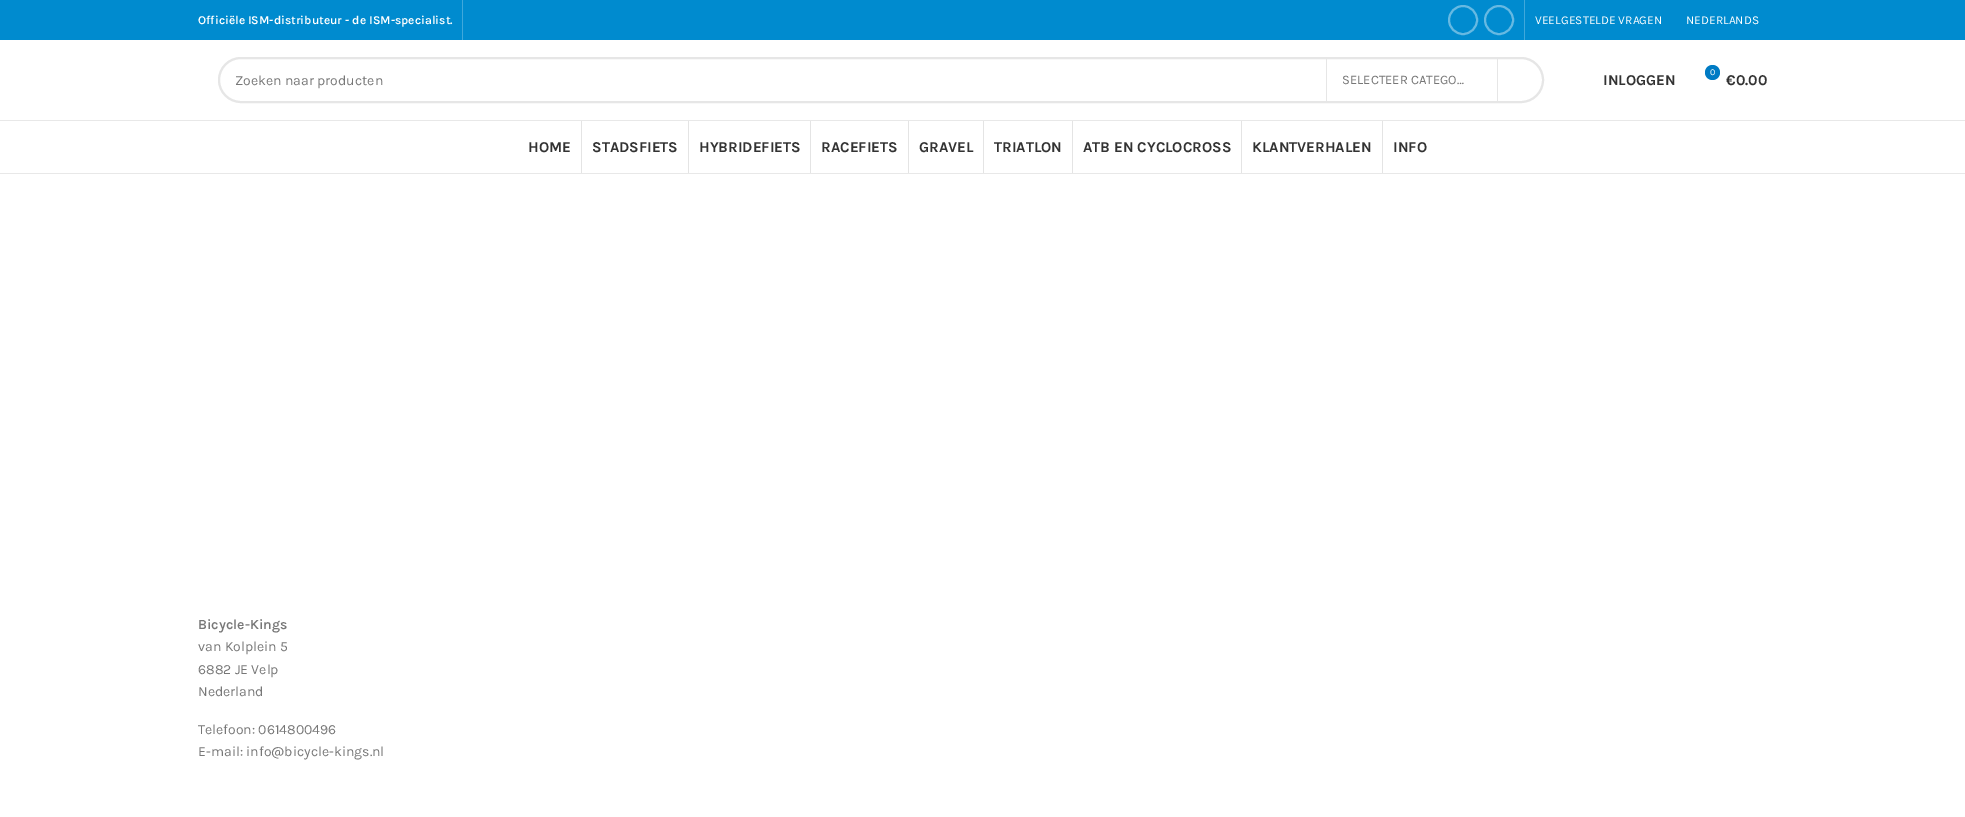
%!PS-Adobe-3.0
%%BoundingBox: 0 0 1965 817
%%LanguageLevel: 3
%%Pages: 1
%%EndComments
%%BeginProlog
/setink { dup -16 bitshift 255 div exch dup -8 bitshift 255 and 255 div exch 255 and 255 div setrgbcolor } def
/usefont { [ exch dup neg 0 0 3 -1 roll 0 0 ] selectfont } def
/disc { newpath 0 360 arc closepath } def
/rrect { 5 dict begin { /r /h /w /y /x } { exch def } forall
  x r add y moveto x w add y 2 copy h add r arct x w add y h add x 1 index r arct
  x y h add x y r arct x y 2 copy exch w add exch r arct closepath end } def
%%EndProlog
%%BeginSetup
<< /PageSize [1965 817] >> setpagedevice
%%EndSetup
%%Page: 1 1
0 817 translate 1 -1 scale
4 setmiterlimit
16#FFFFFF setink
0 0 1965 817 rectfill
16#008BCF setink
0 0 1965 40 rectfill
/Karla-SemiBold 12 usefont
16#FFFFFF setink
198 24 moveto (Officiële ISM-distributeur - de ISM-specialist.) show
16#40A8DB setink
462 0 1 40 rectfill
16#66B9E2 setink
2 setlinewidth
1463 20 14 disc stroke
1499 20 14 disc stroke
16#40A8DB setink
1524 0 1 40 rectfill
/Karla-Regular 12 usefont
16#FFFFFF setink
1535 24 moveto (VEELGESTELDE VRAGEN) show
1686 24 moveto (NEDERLANDS) show
16#E8E8E8 setink
0 120 1965 1 rectfill
16#E6E6E6 setink
219 58 1324 44 22 rrect stroke
/Karla-Regular 14 usefont
16#777777 setink
235 85 moveto (Zoeken naar producten) show
16#E6E6E6 setink
1497 59 1 42 rectfill
1326 59 1 42 rectfill
/Karla-Regular 13 usefont
16#777777 setink
1342 84 moveto (SELECTEER CATEGO…) show
/Karla-Bold 15 usefont
16#333333 setink
1603 85 moveto (INLOGGEN) show
16#007BC4 setink
1712.5 72.5 7.5 disc fill
/Karla-Regular 9 usefont
16#FFFFFF setink
1710 75 moveto (0) show
/Karla-Bold 15 usefont
16#333333 setink
1726 85 moveto (€0.00) show
16#E8E8E8 setink
0 173 1965 1 rectfill
16#333333 setink
528 152 moveto (HOME) show
16#E4E4E4 setink
581 121 1 52 rectfill
16#333333 setink
592 152 moveto (STADSFIETS) show
16#E4E4E4 setink
688 121 1 52 rectfill
16#333333 setink
699 152 moveto (HYBRIDEFIETS) show
16#E4E4E4 setink
810 121 1 52 rectfill
16#333333 setink
821 152 moveto (RACEFIETS) show
16#E4E4E4 setink
908 121 1 52 rectfill
16#333333 setink
919 152 moveto (GRAVEL) show
16#E4E4E4 setink
983 121 1 52 rectfill
16#333333 setink
994 152 moveto (TRIATLON) show
16#E4E4E4 setink
1072 121 1 52 rectfill
16#333333 setink
1083 152 moveto (ATB EN CYCLOCROSS) show
16#E4E4E4 setink
1241 121 1 52 rectfill
16#333333 setink
1252 152 moveto (KLANTVERHALEN) show
16#E4E4E4 setink
1382 121 1 52 rectfill
16#333333 setink
1393 152 moveto (INFO) show
/Karla-SemiBold 14 usefont
16#777777 setink
198 629 moveto (Bicycle-Kings) show
/Karla-Regular 14 usefont
[
    [(van Kolplein 5) 198 651]
    [(6882 JE Velp) 198 674]
    [(Nederland) 198 696]
    [(Telefoon: 0614800496) 198 734]
    [(E-mail: info@bicycle-kings.nl) 198 756]
] { aload pop moveto show } forall
showpage
%%EOF
